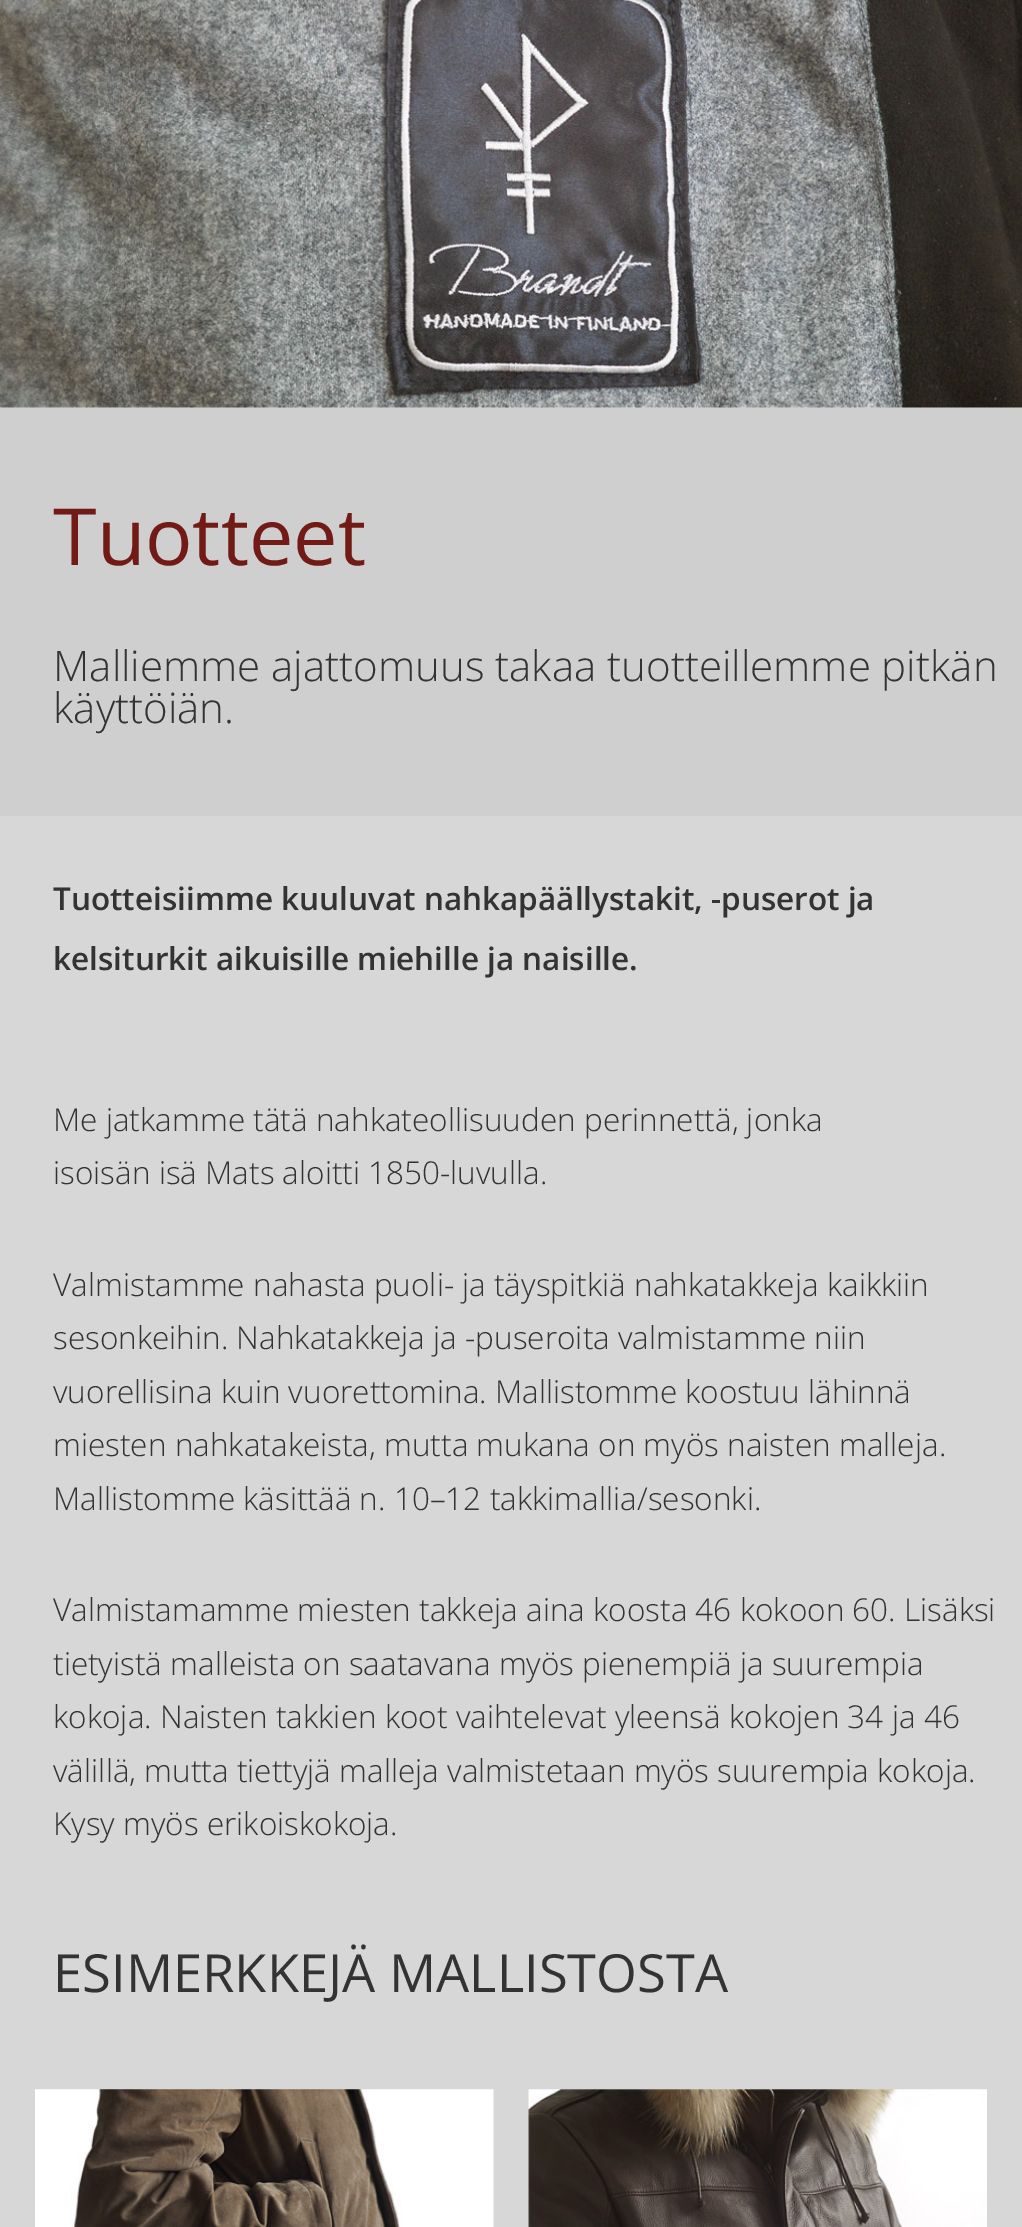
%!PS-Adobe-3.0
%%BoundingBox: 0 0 1022 2227
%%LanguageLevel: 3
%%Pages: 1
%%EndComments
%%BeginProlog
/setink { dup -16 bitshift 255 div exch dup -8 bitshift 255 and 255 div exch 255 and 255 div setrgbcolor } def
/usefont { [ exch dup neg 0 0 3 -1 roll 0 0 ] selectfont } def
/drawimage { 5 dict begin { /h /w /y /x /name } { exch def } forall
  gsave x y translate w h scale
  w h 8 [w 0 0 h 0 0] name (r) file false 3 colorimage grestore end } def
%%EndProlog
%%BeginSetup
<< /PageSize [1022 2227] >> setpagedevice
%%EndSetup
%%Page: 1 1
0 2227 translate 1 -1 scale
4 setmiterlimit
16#D7D7D7 setink
0 0 1022 2227 rectfill
(img1.raw) 0 0 1022 408 drawimage
16#CFCFCF setink
0 408 1022 408 rectfill
/OpenSans-Regular 79 usefont
16#711A16 setink
53 565 moveto (Tuotteet) show
/OpenSans-Light 42 usefont
16#333333 setink
53 681 moveto (Malliemme ajattomuus takaa tuotteillemme pitkän) show
53 723 moveto (käyttöiän.) show
/OpenSans-SemiBold 31.5 usefont
53 910 moveto (Tuotteisiimme kuuluvat nahkapäällystakit, -puserot ja) show
53 970 moveto (kelsiturkit aikuisille miehille ja naisille.) show
/OpenSans-Light 31.5 usefont
[
    [(Me jatkamme tätä nahkateollisuuden perinnettä, jonka) 53 1131]
    [(isoisän isä Mats aloitti 1850-luvulla.) 53 1184]
    [(Valmistamme nahasta puoli- ja täyspitkiä nahkatakkeja kaikkiin) 53 1296]
    [(sesonkeihin. Nahkatakkeja ja -puseroita valmistamme niin) 53 1349]
    [(vuorellisina kuin vuorettomina. Mallistomme koostuu lähinnä) 53 1403]
    [(miesten nahkatakeista, mutta mukana on myös naisten malleja.) 53 1456]
    [(Mallistomme käsittää n. 10–12 takkimallia/sesonki.) 53 1510]
    [(Valmistamamme miesten takkeja aina koosta 46 kokoon 60. Lisäksi) 53 1621]
    [(tietyistä malleista on saatavana myös pienempiä ja suurempia) 53 1675]
    [(kokoja. Naisten takkien koot vaihtelevat yleensä kokojen 34 ja 46) 53 1728]
    [(välillä, mutta tiettyjä malleja valmistetaan myös suurempia kokoja.) 53 1782]
    [(Kysy myös erikoiskokoja.) 53 1835]
] { aload pop moveto show } forall
/OpenSans-Regular 52.5 usefont
53 1992 moveto (ESIMERKKEJÄ MALLISTOSTA) show
(img2.raw) 35 2089 459 138 drawimage
(img3.raw) 528 2089 459 138 drawimage
showpage
%%EOF
